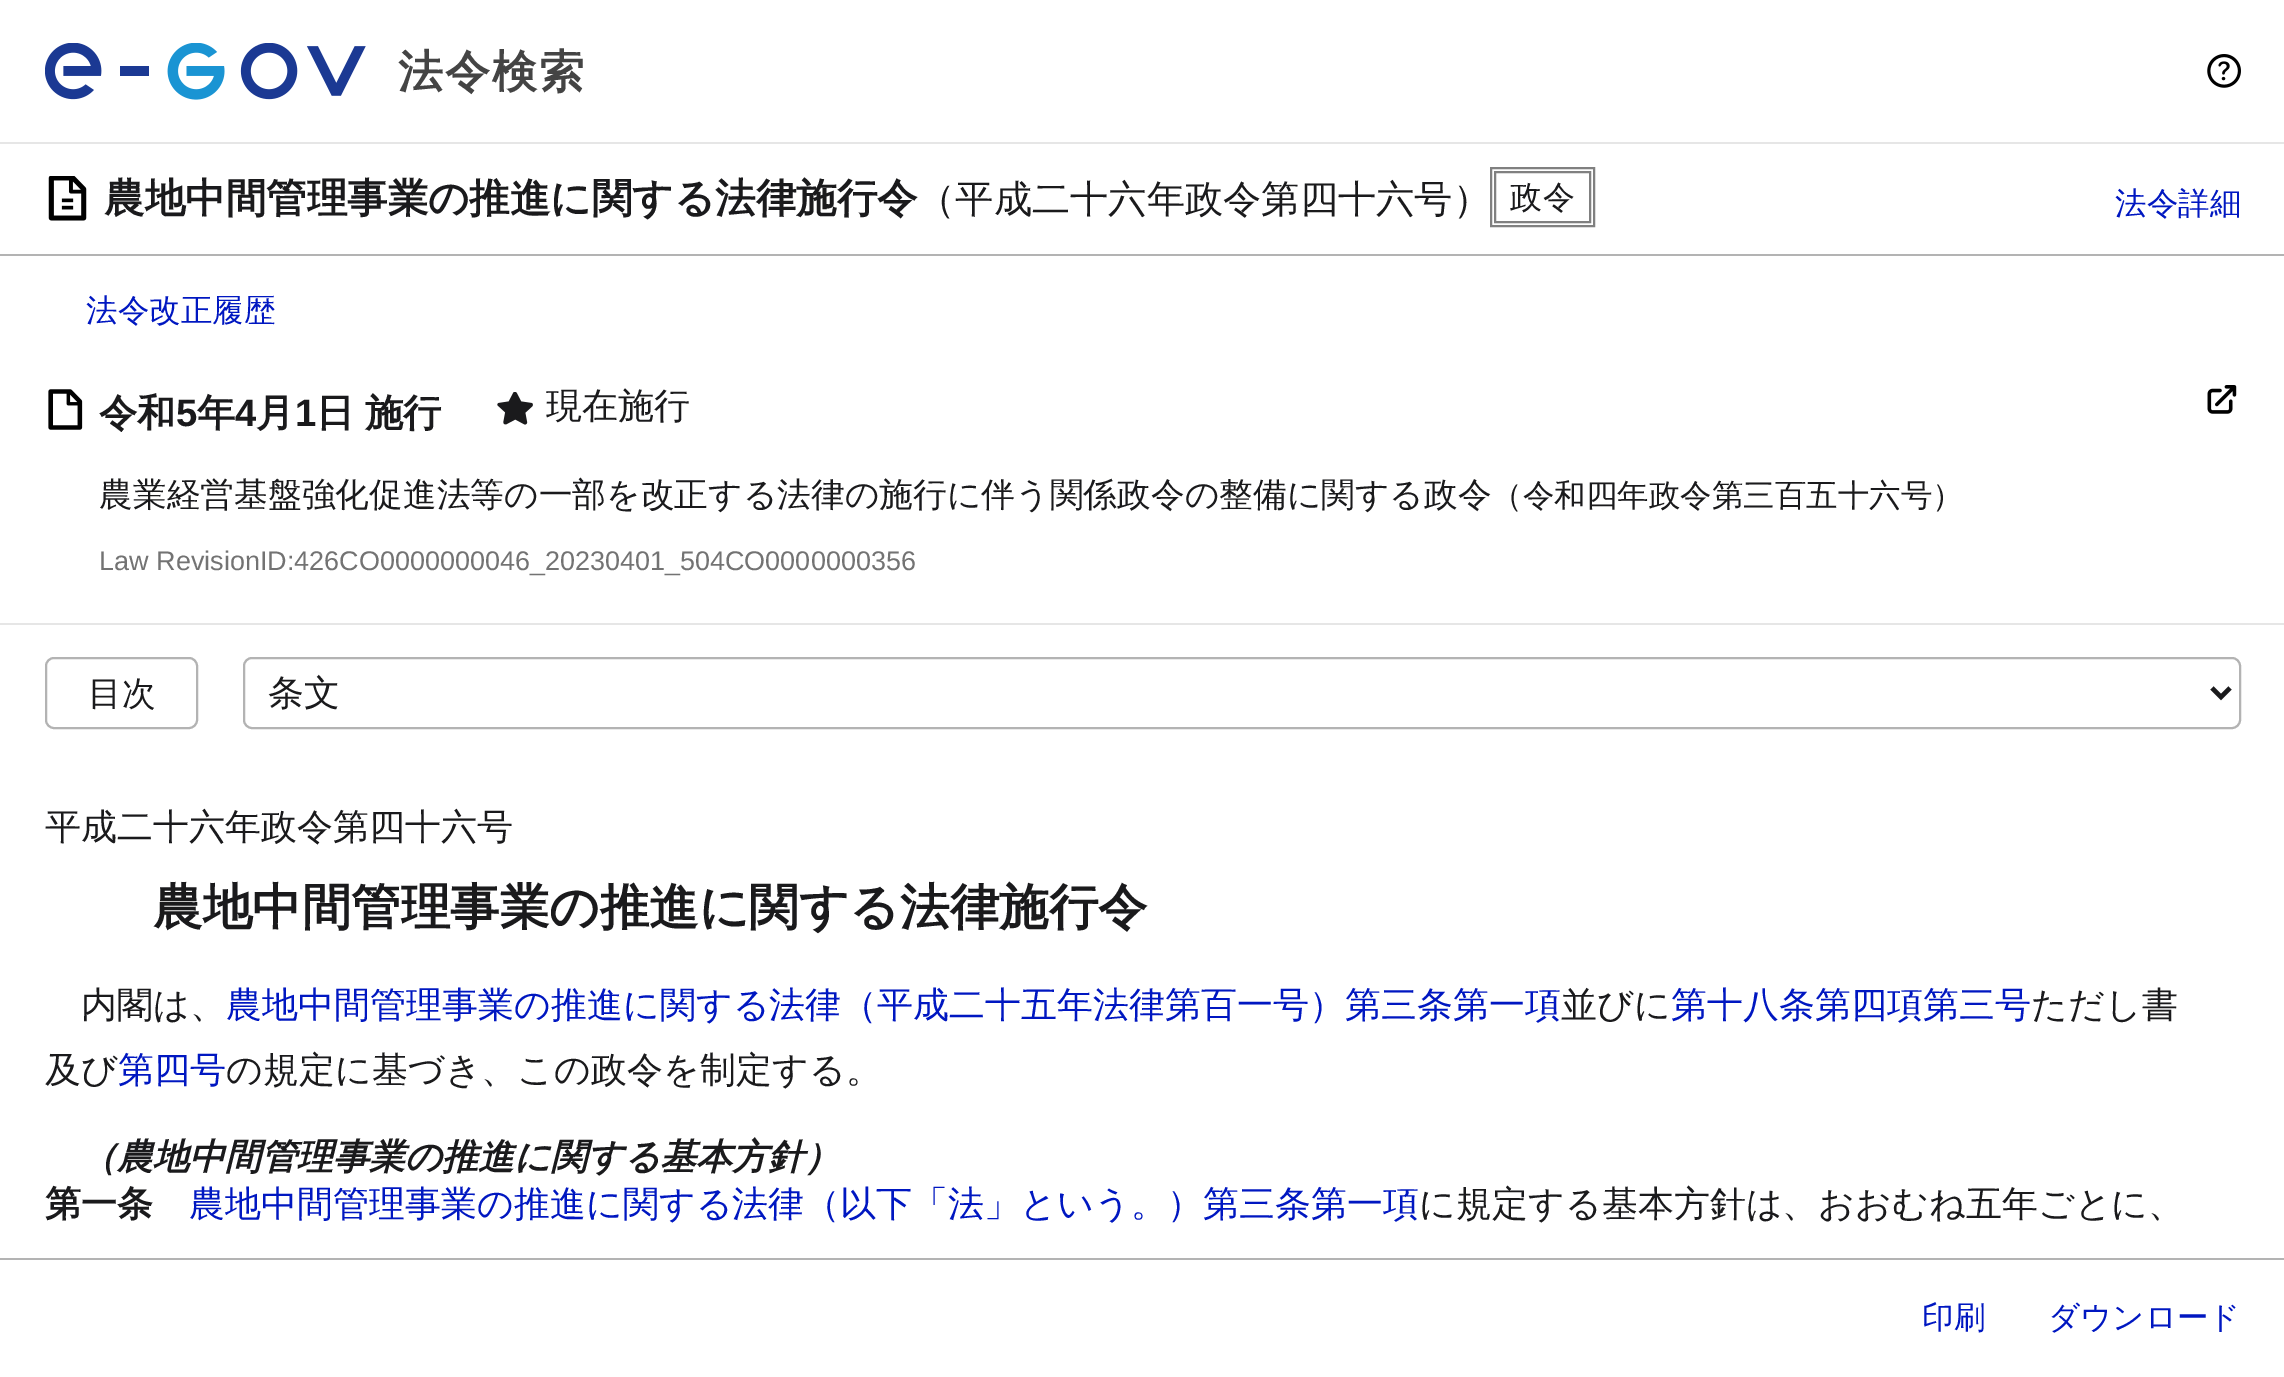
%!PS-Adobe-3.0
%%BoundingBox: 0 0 2284 1377
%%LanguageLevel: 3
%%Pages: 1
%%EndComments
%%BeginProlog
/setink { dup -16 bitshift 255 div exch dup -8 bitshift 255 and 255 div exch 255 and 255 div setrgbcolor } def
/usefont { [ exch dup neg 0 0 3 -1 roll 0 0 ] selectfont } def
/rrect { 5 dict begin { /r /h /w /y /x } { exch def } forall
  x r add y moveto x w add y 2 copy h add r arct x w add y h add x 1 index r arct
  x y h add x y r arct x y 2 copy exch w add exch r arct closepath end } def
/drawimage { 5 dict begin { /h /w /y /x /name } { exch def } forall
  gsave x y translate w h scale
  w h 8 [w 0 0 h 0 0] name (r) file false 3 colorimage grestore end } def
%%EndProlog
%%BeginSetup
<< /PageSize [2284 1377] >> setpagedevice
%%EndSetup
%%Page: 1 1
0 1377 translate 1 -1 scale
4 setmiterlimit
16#FFFFFF setink
0 0 2284 1377 rectfill
16#E6E6E6 setink
0 142 2284 2 rectfill
(img1.raw) 45 43 321 57 drawimage
/WenQuanYiZenHei-Bold 45 usefont
16#444444 setink
398 87 moveto 2 0 (法令検索) ashow
(img2.raw) 2207 54 34 34 drawimage
16#B3B3B3 setink
0 254 2284 2 rectfill
(img3.raw) 48 176 39 45 drawimage
/WenQuanYiZenHei-Bold 40.5 usefont
16#1A1A1C setink
104 212 moveto (農地中間管理事業の推進に関する法律施行令) show
/WenQuanYiZenHei-Medium 38.25 usefont
917 212 moveto (（平成二十六年政令第四十六号）) show
16#808080 setink
2 setlinewidth
1491 168 103 58 rectstroke
1495 172 95 50 rectstroke
/WenQuanYiZenHei-Medium 32 usefont
16#1A1A1C setink
1510 208 moveto 1 0 (政令) ashow
/WenQuanYiZenHei-Medium 31.5 usefont
16#0017C1 setink
2115 214 moveto (法令詳細) show
86 321 moveto (法令改正履歴) show
16#E6E6E6 setink
0 623 2284 2 rectfill
(img4.raw) 48 389 35 41 drawimage
/WenQuanYiZenHei-Bold 38.25 usefont
16#1A1A1C setink
99 426 moveto (令和) show
/LiberationSans-Bold 38.25 usefont
176 426 moveto (5) show
/WenQuanYiZenHei-Bold 38.25 usefont
197 426 moveto (年) show
/LiberationSans-Bold 38.25 usefont
235 426 moveto (4) show
/WenQuanYiZenHei-Bold 38.25 usefont
256 426 moveto (月) show
/LiberationSans-Bold 38.25 usefont
295 426 moveto (1) show
/WenQuanYiZenHei-Bold 38.25 usefont
316 426 moveto -1 0 32 (日 施行) widthshow
(img5.raw) 497 392 36 33 drawimage
/WenQuanYiZenHei-Medium 36 usefont
546 418 moveto (現在施行) show
(img6.raw) 2207 385 30 29 drawimage
/WenQuanYiZenHei-Medium 33.75 usefont
99 506 moveto (農業経営基盤強化促進法等の一部を改正する法律の施行に伴う関係政令の整備に関する政令) show
/WenQuanYiZenHei-Medium 31.5 usefont
1491 506 moveto (（令和四年政令第三百五十六号）) show
/LiberationSans-Regular 27 usefont
16#737373 setink
99 570 moveto (Law RevisionID:426CO0000000046_20230401_504CO0000000356) show
16#B3B3B3 setink
46 658 151 70 8 rrect stroke
/WenQuanYiZenHei-Medium 33.75 usefont
16#1A1A1C setink
88 705 moveto (目次) show
16#B3B3B3 setink
244 658 1996 70 8 rrect stroke
16#1A1A1C setink
4.5 setlinewidth
2212 688 moveto 2221 697 lineto 2230 688 lineto stroke
/WenQuanYiZenHei-Medium 36 usefont
268 705 moveto (条文) show
45 839 moveto (平成二十六年政令第四十六号) show
/WenQuanYiZenHei-Bold 49.5 usefont
153 924 moveto (農地中間管理事業の推進に関する法律施行令) show
/WenQuanYiZenHei-Medium 36 usefont
81 1017 moveto (内閣は、) show
16#0017C1 setink
226 1017 moveto (農地中間管理事業の推進に関する法律（平成二十五年法律第百一号）第三条第一項) show
16#1A1A1C setink
1561 1017 moveto (並びに) show
16#0017C1 setink
1671 1017 moveto (第十八条第四項第三号) show
16#1A1A1C setink
2031 1017 moveto (ただし書) show
45 1082 moveto (及び) show
16#0017C1 setink
118 1082 moveto (第四号) show
16#1A1A1C setink
226 1082 moveto (の規定に基づき、この政令を制定する。) show
/WenQuanYiZenHei-BoldItalic 36 usefont
81 1169 moveto (（農地中間管理事業の推進に関する基本方針）) show
/WenQuanYiZenHei-Bold 36 usefont
45 1216 moveto (第一条) show
/WenQuanYiZenHei-Medium 36 usefont
16#0017C1 setink
189 1216 moveto (農地中間管理事業の推進に関する法律（以下「法」という。）第三条第一項) show
16#1A1A1C setink
1419 1216 moveto (に規定する基本方針は、おおむね五年ごとに、) show
16#B3B3B3 setink
0 1258 2284 2 rectfill
/WenQuanYiZenHei-Medium 31.5 usefont
16#0017C1 setink
1922 1328 moveto (印刷) show
2048 1328 moveto (ダウンロード) show
showpage
%%EOF
